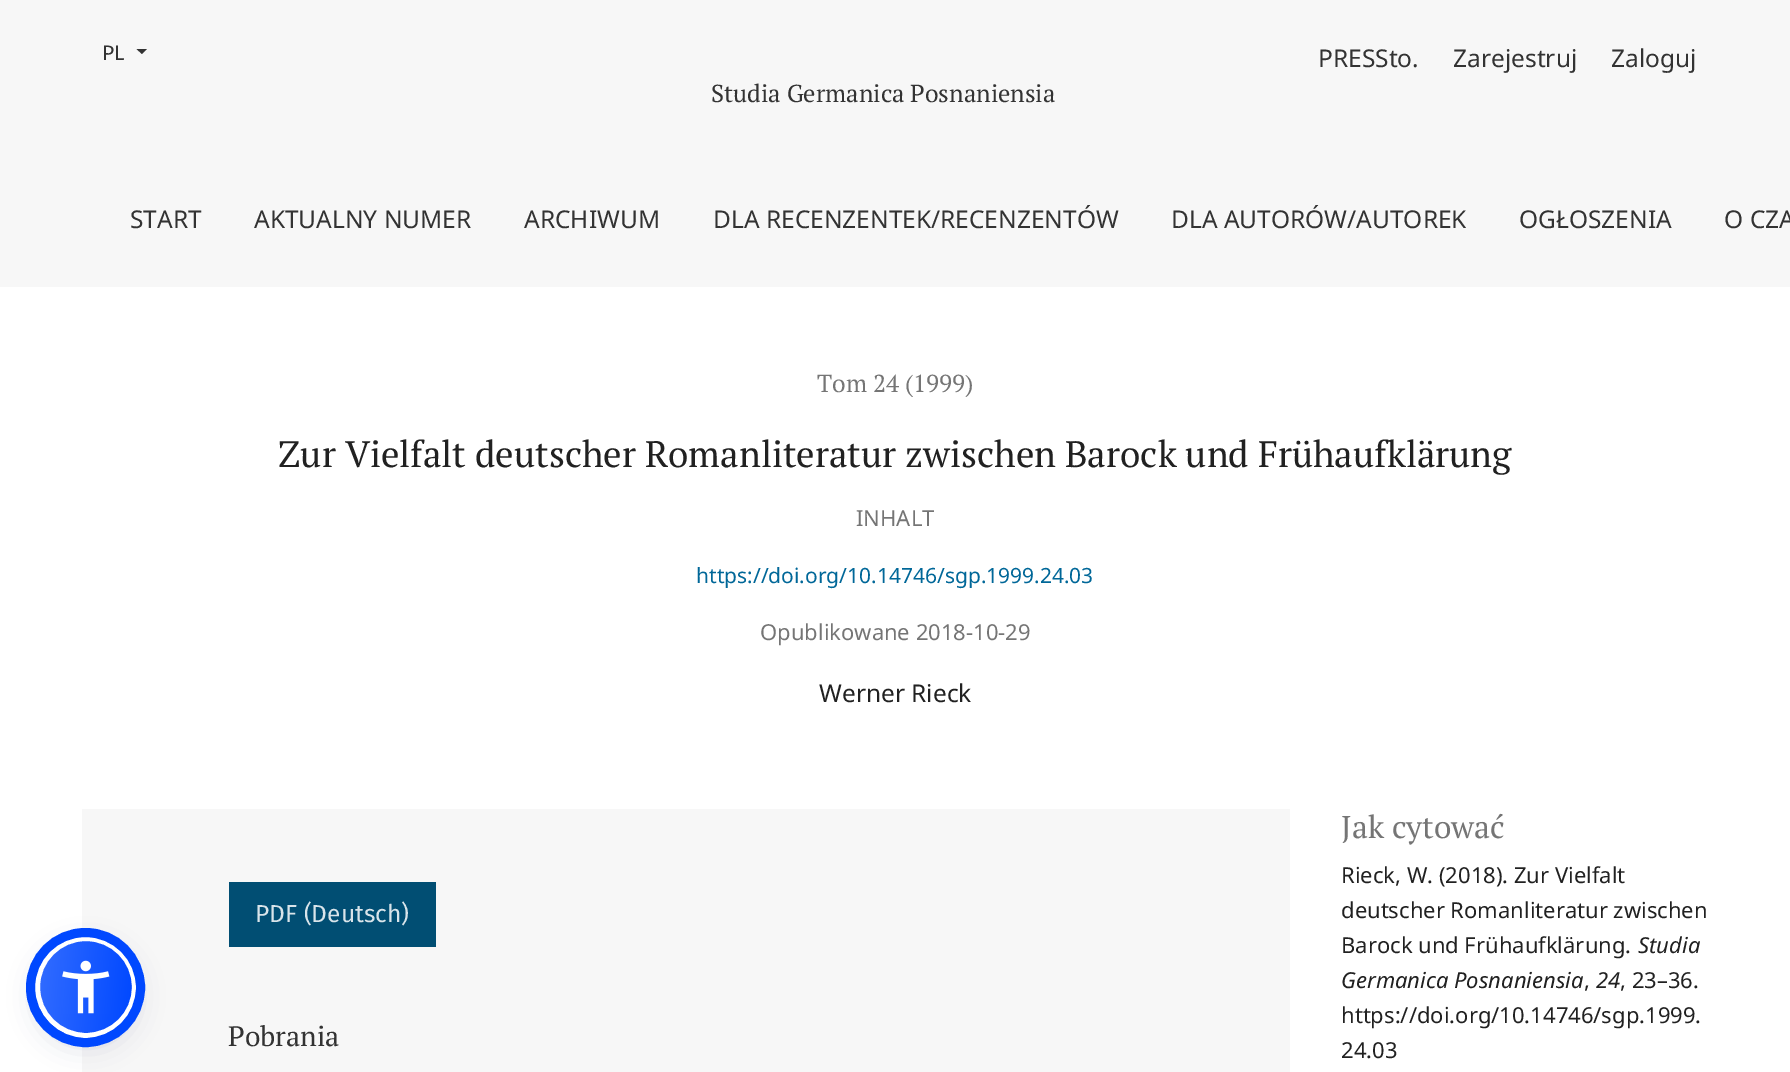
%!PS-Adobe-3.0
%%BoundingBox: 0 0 1790 1072
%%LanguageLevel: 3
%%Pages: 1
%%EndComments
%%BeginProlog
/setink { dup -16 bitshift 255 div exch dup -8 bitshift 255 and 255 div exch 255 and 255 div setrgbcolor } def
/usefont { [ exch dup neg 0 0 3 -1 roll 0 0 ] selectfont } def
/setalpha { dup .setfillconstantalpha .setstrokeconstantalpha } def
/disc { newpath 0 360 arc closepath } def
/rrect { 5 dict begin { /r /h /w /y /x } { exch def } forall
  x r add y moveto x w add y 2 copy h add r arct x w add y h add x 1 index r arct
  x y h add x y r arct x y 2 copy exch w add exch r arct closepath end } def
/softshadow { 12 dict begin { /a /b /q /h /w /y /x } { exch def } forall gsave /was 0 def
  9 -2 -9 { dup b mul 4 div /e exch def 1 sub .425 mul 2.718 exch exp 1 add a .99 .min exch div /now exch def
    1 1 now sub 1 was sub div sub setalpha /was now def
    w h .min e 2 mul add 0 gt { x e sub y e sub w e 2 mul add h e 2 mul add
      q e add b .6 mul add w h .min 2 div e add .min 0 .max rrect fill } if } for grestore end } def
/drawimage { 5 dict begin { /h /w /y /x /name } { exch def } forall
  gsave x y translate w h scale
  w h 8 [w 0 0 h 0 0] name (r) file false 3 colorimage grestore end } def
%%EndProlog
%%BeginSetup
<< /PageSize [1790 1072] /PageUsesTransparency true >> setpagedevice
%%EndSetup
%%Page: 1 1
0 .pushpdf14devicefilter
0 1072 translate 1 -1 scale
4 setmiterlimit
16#FFFFFF setink
0 0 1790 1072 rectfill
16#F7F7F7 setink
0 0 1790 287 rectfill
/FiraSans-Regular 21 usefont
16#333333 setink
102 60 moveto (PL) show
136.5 49 moveto 147 49 lineto 142 54 lineto closepath fill
/NotoSans-Regular 24.5 usefont
[
    [(PRESSto.) 1318 67]
    [(Zarejestruj) 1453 67]
    [(Zaloguj) 1611 67]
] { aload pop moveto show } forall
/PTSerif-Regular 24.5 usefont
711 102 moveto (Studia Germanica Posnaniensia) show
/NotoSans-Regular 24.5 usefont
[
    [(START) 130 228]
    [(AKTUALNY NUMER) 254 228]
    [(ARCHIWUM) 524 228]
    [(DLA RECENZENTEK/RECENZENTÓW) 713 228]
    [(DLA AUTORÓW/AUTOREK) 1171 228]
    [(OGŁOSZENIA) 1519 228]
    [(O CZA) 1724 228]
] { aload pop moveto show } forall
16#F7F7F7 setink
82 809 1208 263 rectfill
16#5D6494 setink
35 940 102 101 50.5 3.5 0.2 softshadow
16#252C61 setink
35 945 102 102 51 13 0.15 softshadow
gsave
35 936 102 102 51 rrect clip newpath
gsave 63 937 moveto 96 937 lineto 96 942 lineto 63 942 lineto closepath clip newpath
<< /ShadingType 2 /ColorSpace /DeviceRGB /Coords [36 891 135 901] /Extend [true true] /Function << /FunctionType 2 /Domain [0 1] /C0 [0.196 0.424 1] /C1 [0 0.282 1] /N 1 >> >> shfill grestore
gsave 40 942 moveto 131 942 lineto 131 1033 lineto 40 1033 lineto closepath clip newpath
<< /ShadingType 2 /ColorSpace /DeviceRGB /Coords [36 982 135 992] /Extend [true true] /Function << /FunctionType 2 /Domain [0 1] /C0 [0.196 0.424 1] /C1 [0 0.282 1] /N 1 >> >> shfill grestore
gsave 131 967 moveto 136 967 lineto 136 1010 lineto 131 1010 lineto closepath clip newpath
<< /ShadingType 2 /ColorSpace /DeviceRGB /Coords [127 982 226 992] /Extend [true true] /Function << /FunctionType 2 /Domain [0 1] /C0 [0.196 0.424 1] /C1 [0 0.282 1] /N 1 >> >> shfill grestore
grestore
16#FFFFFF setink
5 setlinewidth
86 987 48.5 disc stroke
16#0048FF setink
9 setlinewidth
85.5 987.5 55 disc stroke
(img1.raw) 62 960 48 54 drawimage
/PTSerif-Regular 24.5 usefont
16#757575 setink
817 392 moveto (Tom 24 \(1999\)) show
/PTSerif-Regular 36.75 usefont
16#212121 setink
278 467 moveto (Zur Vielfalt deutscher Romanliteratur zwischen Barock und Frühaufklärung) show
/NotoSans-Regular 22 usefont
16#757575 setink
856 526 moveto (INHALT) show
/NotoSans-Regular 21 usefont
16#006798 setink
696 583 moveto (https://doi.org/10.14746/sgp.1999.24.03) show
/NotoSans-Regular 22 usefont
16#757575 setink
760 640 moveto (Opublikowane 2018-10-29) show
/NotoSans-Regular 24.5 usefont
16#212121 setink
819 702 moveto (Werner Rieck) show
16#014E73 setink
229 882 207 65 rectfill
/FiraSans-Regular 24.5 usefont
16#D9E4EA setink
255 922 moveto (PDF \(Deutsch\)) show
/PTSerif-Regular 28 usefont
16#333333 setink
228 1046 moveto (Pobrania) show
/PTSerif-Regular 31.5 usefont
16#757575 setink
1341 838 moveto (Jak cytować) show
/NotoSans-Regular 22 usefont
16#212121 setink
[
    [(Rieck, W. \(2018\). Zur Vielfalt) 1341 883]
    [(deutscher Romanliteratur zwischen) 1341 918]
    [(Barock und Frühaufklärung.) 1341 953]
] { aload pop moveto show } forall
/NotoSans-Italic 22 usefont
1638 953 moveto (Studia) show
1341 988 moveto (Germanica Posnaniensia) show
/NotoSans-Regular 22 usefont
1584 988 moveto (,) show
/NotoSans-Italic 22 usefont
1596 988 moveto (24) show
/NotoSans-Regular 22 usefont
[
    [(, 23–36.) 1620 988]
    [(https://doi.org/10.14746/sgp.1999.) 1341 1023]
    [(24.03) 1341 1058]
] { aload pop moveto show } forall
.poppdf14devicefilter showpage
%%EOF
